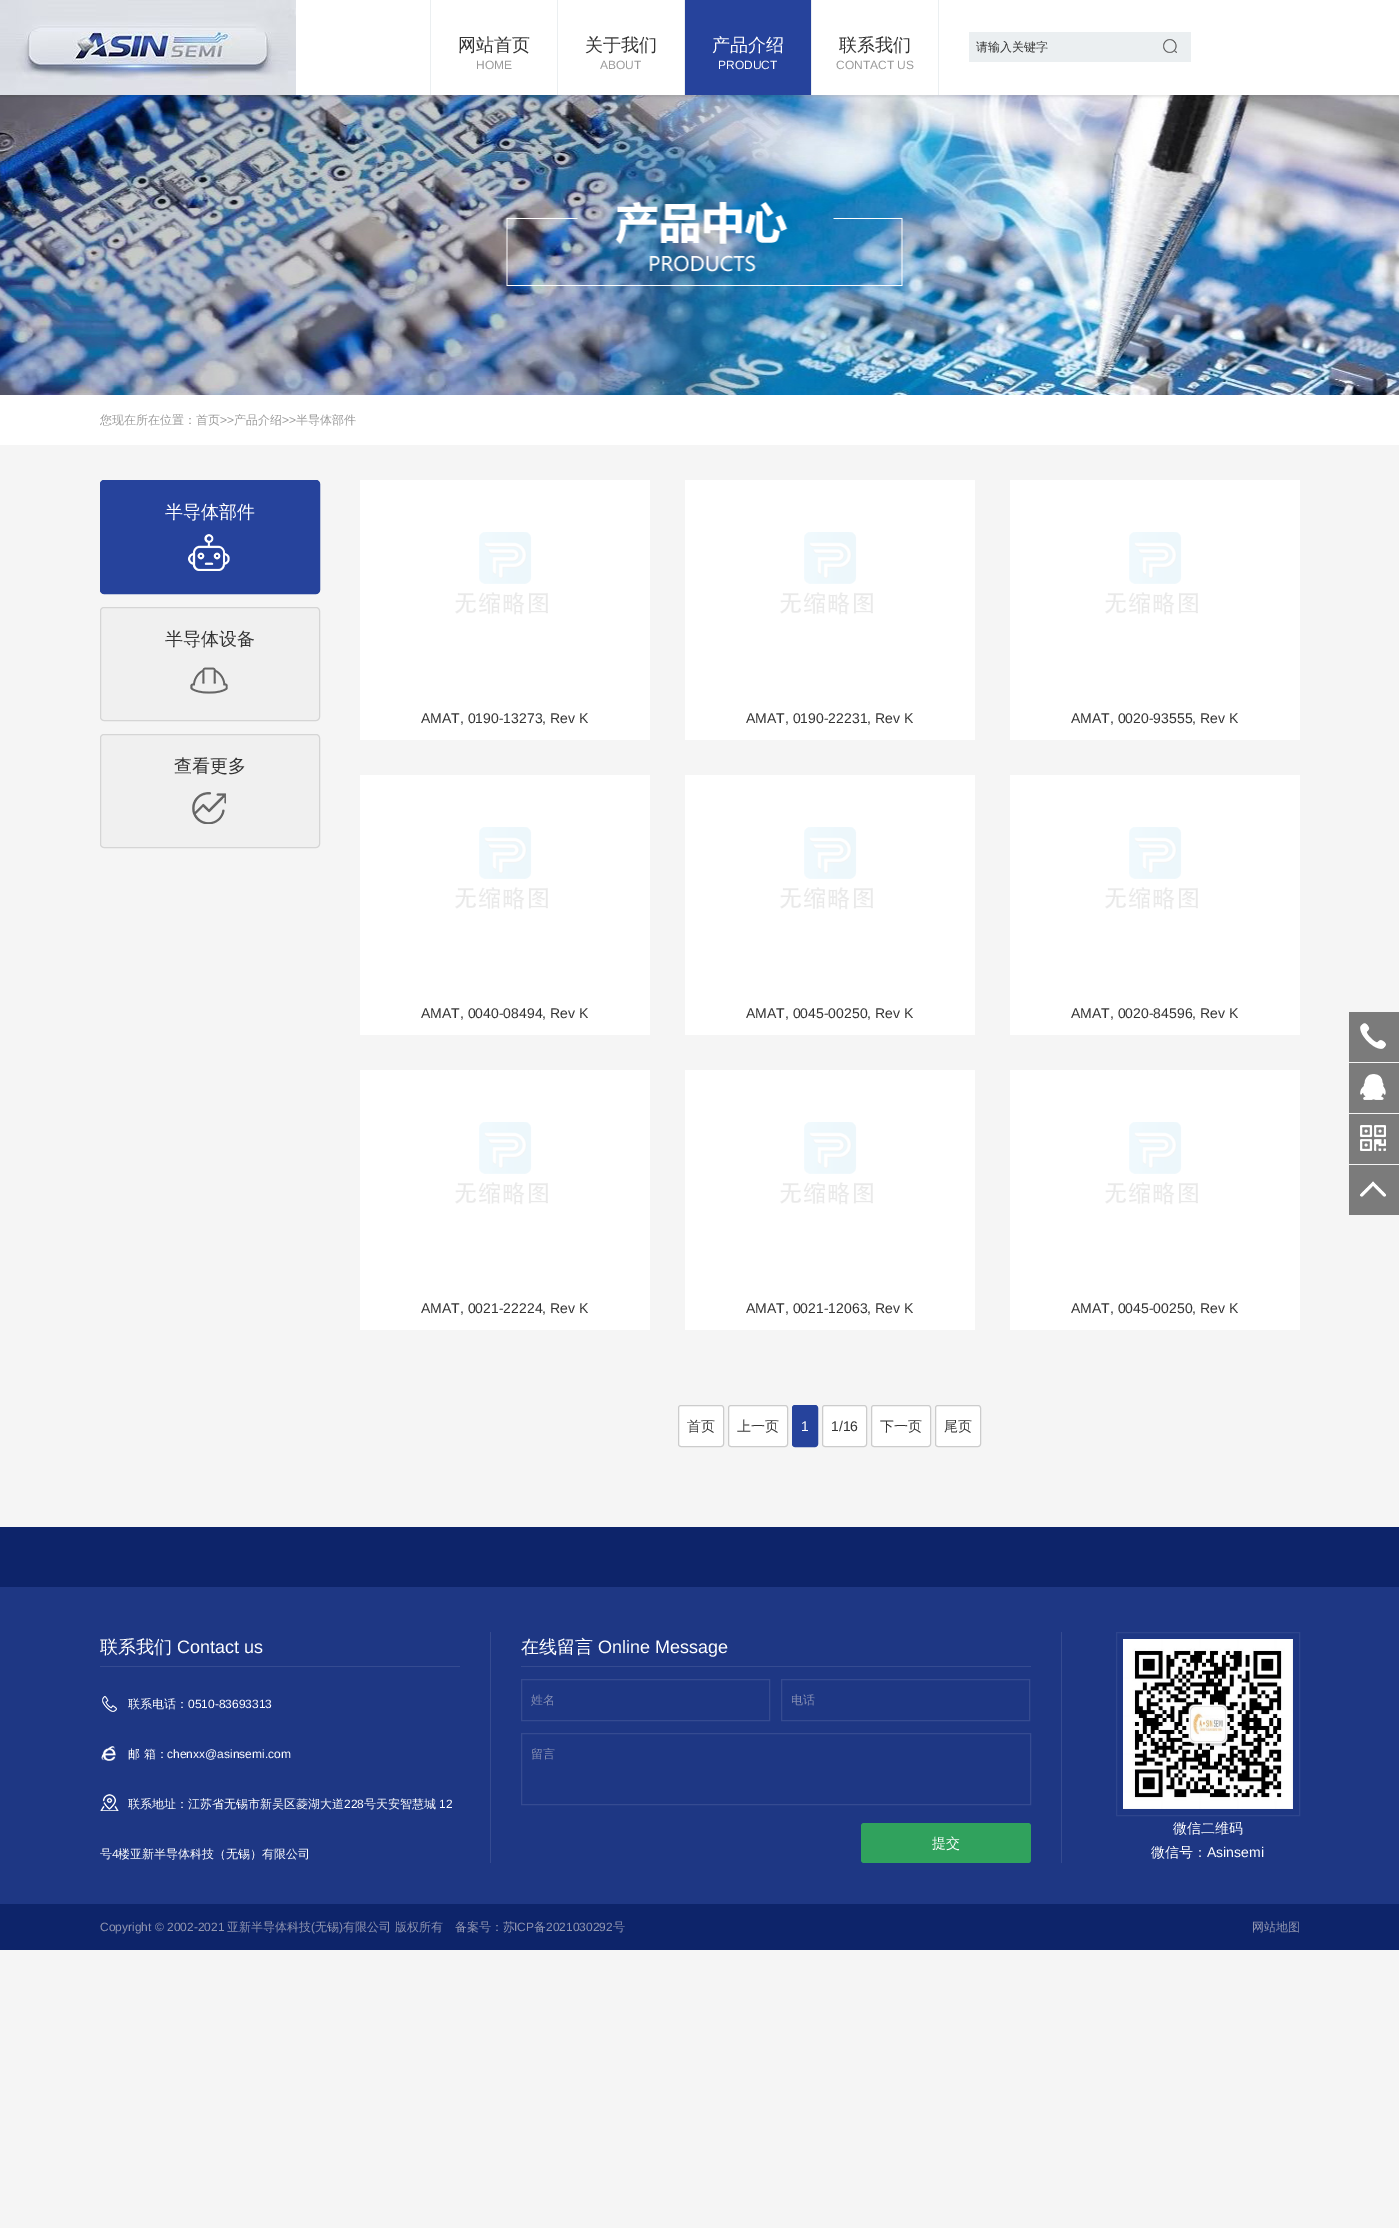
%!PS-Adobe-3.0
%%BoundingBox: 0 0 1399 2228
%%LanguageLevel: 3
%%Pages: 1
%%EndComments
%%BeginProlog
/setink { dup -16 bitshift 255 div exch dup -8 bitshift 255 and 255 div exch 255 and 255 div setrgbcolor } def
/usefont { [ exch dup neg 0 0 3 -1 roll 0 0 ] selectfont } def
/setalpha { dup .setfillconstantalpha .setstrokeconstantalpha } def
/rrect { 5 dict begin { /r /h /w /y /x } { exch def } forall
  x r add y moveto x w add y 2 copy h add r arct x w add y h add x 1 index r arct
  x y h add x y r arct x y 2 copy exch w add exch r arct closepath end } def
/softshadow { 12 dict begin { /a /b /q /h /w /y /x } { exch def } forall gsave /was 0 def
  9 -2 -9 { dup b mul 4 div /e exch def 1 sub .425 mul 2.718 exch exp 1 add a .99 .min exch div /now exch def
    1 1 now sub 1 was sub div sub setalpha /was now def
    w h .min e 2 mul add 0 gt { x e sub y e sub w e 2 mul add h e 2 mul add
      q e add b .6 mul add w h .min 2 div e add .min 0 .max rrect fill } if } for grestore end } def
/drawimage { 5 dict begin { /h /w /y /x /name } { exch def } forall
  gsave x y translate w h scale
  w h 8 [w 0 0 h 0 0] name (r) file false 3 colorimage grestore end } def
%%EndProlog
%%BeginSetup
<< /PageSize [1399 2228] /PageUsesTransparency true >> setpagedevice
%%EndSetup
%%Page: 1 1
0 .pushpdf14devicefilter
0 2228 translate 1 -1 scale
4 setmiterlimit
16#F5F5F5 setink
0 0 1399 2228 rectfill
(img3.raw) 0 95 1399 300 drawimage
16#000000 setink
0 2 1399 95 0 1 0.1 softshadow
16#FFFFFF setink
296 0 1103 95 rectfill
(img1.raw) 0 0 296 95 drawimage
16#EBEFF1 setink
430 0 1 95 rectfill
557 0 1 95 rectfill
/WenQuanYiZenHei-Medium 18 usefont
16#333333 setink
458 51 moveto (网站首页) show
/LiberationSans-Regular 12 usefont
16#999999 setink
476 69 moveto (HOME) show
16#EBEFF1 setink
684 0 1 95 rectfill
/WenQuanYiZenHei-Medium 18 usefont
16#333333 setink
585 51 moveto (关于我们) show
/LiberationSans-Regular 12 usefont
16#999999 setink
600 69 moveto (ABOUT) show
16#EBEFF1 setink
811 0 1 95 rectfill
16#26439C setink
685 0 126 95 rectfill
/WenQuanYiZenHei-Medium 18 usefont
16#FFFFFF setink
712 51 moveto (产品介绍) show
/LiberationSans-Regular 12 usefont
718 69 moveto (PRODUCT) show
16#EBEFF1 setink
938 0 1 95 rectfill
/WenQuanYiZenHei-Medium 18 usefont
16#333333 setink
839 51 moveto (联系我们) show
/LiberationSans-Regular 12 usefont
16#999999 setink
836 69 moveto (CONTACT US) show
16#EBEFF1 setink
969 32 222 30 rectfill
/WenQuanYiZenHei-Medium 12 usefont
16#333333 setink
976 51 moveto (请输入关键字) show
(img2.raw) 1163 39 14 14 drawimage
16#FFFFFF setink
0 395 1399 50 rectfill
16#999999 setink
100 424 moveto (您现在所在位置：首页) show
/LiberationSans-Regular 12 usefont
220 424 moveto (>>) show
/WenQuanYiZenHei-Medium 12 usefont
234 424 moveto (产品介绍) show
/LiberationSans-Regular 12 usefont
282 424 moveto (>>) show
/WenQuanYiZenHei-Medium 12 usefont
296 424 moveto (半导体部件) show
16#26439C setink
100.5 480.5 219 113 3.5 rrect gsave fill grestore
stroke
/WenQuanYiZenHei-Medium 18 usefont
16#FFFFFF setink
165 518 moveto (半导体部件) show
(img4.raw) 188 534 42 37 drawimage
16#F0F0F0 setink
100.5 607.5 219 113 3.5 rrect gsave fill grestore
16#D5D5D5 setink
stroke
16#333333 setink
165 645 moveto (半导体设备) show
(img5.raw) 190 667 38 27 drawimage
16#F0F0F0 setink
100.5 734.5 219 113 3.5 rrect gsave fill grestore
16#D5D5D5 setink
stroke
16#333333 setink
174 772 moveto (查看更多) show
(img6.raw) 192 792 34 32 drawimage
16#FFFFFF setink
360 480 290 260 rectfill
(img7.raw) 455 532 93 83 drawimage
/LiberationSans-Regular 14 usefont
16#333333 setink
421 723 moveto (AMAT, 0190-13273, Rev K) show
16#FFFFFF setink
685 480 290 260 rectfill
(img7.raw) 780 532 93 83 drawimage
16#333333 setink
746 723 moveto (AMAT, 0190-22231, Rev K) show
16#FFFFFF setink
1010 480 290 260 rectfill
(img7.raw) 1105 532 93 83 drawimage
16#333333 setink
1071 723 moveto (AMAT, 0020-93555, Rev K) show
16#FFFFFF setink
360 775 290 260 rectfill
(img7.raw) 455 827 93 83 drawimage
16#333333 setink
421 1018 moveto (AMAT, 0040-08494, Rev K) show
16#FFFFFF setink
685 775 290 260 rectfill
(img7.raw) 780 827 93 83 drawimage
16#333333 setink
746 1018 moveto (AMAT, 0045-00250, Rev K) show
16#FFFFFF setink
1010 775 290 260 rectfill
(img7.raw) 1105 827 93 83 drawimage
16#333333 setink
1071 1018 moveto (AMAT, 0020-84596, Rev K) show
16#FFFFFF setink
360 1070 290 260 rectfill
(img8.raw) 455 1122 93 83 drawimage
16#333333 setink
421 1313 moveto (AMAT, 0021-22224, Rev K) show
16#FFFFFF setink
685 1070 290 260 rectfill
(img8.raw) 780 1122 93 83 drawimage
16#333333 setink
746 1313 moveto (AMAT, 0021-12063, Rev K) show
16#FFFFFF setink
1010 1070 290 260 rectfill
(img8.raw) 1105 1122 93 83 drawimage
16#333333 setink
1071 1313 moveto (AMAT, 0045-00250, Rev K) show
16#FFFFFF setink
678.5 1405.5 45 41 2.5 rrect gsave fill grestore
16#CCCCCC setink
stroke
/WenQuanYiZenHei-Medium 14 usefont
16#333333 setink
687 1431 moveto (首页) show
16#FFFFFF setink
728.5 1405.5 59 41 2.5 rrect gsave fill grestore
16#CCCCCC setink
stroke
16#333333 setink
737 1431 moveto (上一页) show
16#26439C setink
792.5 1405.5 25 41 2.5 rrect gsave fill grestore
stroke
/LiberationSans-Regular 14 usefont
16#FFFFFF setink
801 1431 moveto (1) show
822.5 1405.5 44 41 2.5 rrect gsave fill grestore
16#CCCCCC setink
stroke
16#333333 setink
831 1431 moveto (1/16) show
16#FFFFFF setink
871.5 1405.5 59 41 2.5 rrect gsave fill grestore
16#CCCCCC setink
stroke
/WenQuanYiZenHei-Medium 14 usefont
16#333333 setink
880 1431 moveto (下一页) show
16#FFFFFF setink
935.5 1405.5 45 41 2.5 rrect gsave fill grestore
16#CCCCCC setink
stroke
16#333333 setink
944 1431 moveto (尾页) show
16#7B7B7B setink
1349 1012 50 50 rectfill
(img9.raw) 1360 1023 26 26 drawimage
1349 1063 50 50 rectfill
(img10.raw) 1360 1074 26 26 drawimage
1349 1114 50 50 rectfill
(img11.raw) 1360 1125 26 26 drawimage
1349 1165 50 50 rectfill
(img12.raw) 1360 1181 26 16 drawimage
[
    [0 1527 1399 60 16#0D246A]
    [0 1587 1399 317 16#1E3784]
    [100 1666 360 1 16#354B91]
] { aload pop setink rectfill } forall
/WenQuanYiZenHei-Medium 18 usefont
16#FFFFFF setink
100 1653 moveto (联系我们) show
/LiberationSans-Regular 18 usefont
177 1653 moveto (Contact us) show
(img13.raw) 102 1696 15 16 drawimage
/WenQuanYiZenHei-Medium 12 usefont
128 1708 moveto (联系电话：) show
/LiberationSans-Regular 12 usefont
188 1708 moveto (0510-83693313) show
(img14.raw) 101 1746 15 15 drawimage
/WenQuanYiZenHei-Medium 12 usefont
128 1758 moveto (邮 箱：) show
/LiberationSans-Regular 12 usefont
167 1758 moveto (chenxx@asinsemi.com) show
(img15.raw) 100 1794 19 17 drawimage
/WenQuanYiZenHei-Medium 12 usefont
128 1808 moveto (联系地址：江苏省无锡市新吴区菱湖大道) show
/LiberationSans-Regular 12 usefont
344 1808 moveto (228) show
/WenQuanYiZenHei-Medium 12 usefont
364 1808 moveto (号天安智慧城) show
/LiberationSans-Regular 12 usefont
439 1808 moveto (12) show
/WenQuanYiZenHei-Medium 12 usefont
100 1858 moveto (号) show
/LiberationSans-Regular 12 usefont
112 1858 moveto (4) show
/WenQuanYiZenHei-Medium 12 usefont
118 1858 moveto (楼亚新半导体科技（无锡）有限公司) show
[
    [1061 1632 1 231 16#354B91]
    [490 1632 1 231 16#354B91]
    [521 1666 510 1 16#354B91]
] { aload pop setink rectfill } forall
/WenQuanYiZenHei-Medium 18 usefont
16#FFFFFF setink
521 1653 moveto (在线留言) show
/LiberationSans-Regular 18 usefont
598 1653 moveto (Online Message) show
16#354B91 setink
521.5 1679.5 248 41 rectstroke
/WenQuanYiZenHei-Medium 12 usefont
16#848DB2 setink
531 1704 moveto (姓名) show
16#354B91 setink
781.5 1679.5 248 41 rectstroke
16#848DB2 setink
791 1704 moveto (电话) show
16#354B91 setink
521.5 1733.5 509 71 rectstroke
16#848DB2 setink
531 1758 moveto (留言) show
16#30A25D setink
861 1823 170 40 3 rrect fill
/WenQuanYiZenHei-Medium 14 usefont
16#FFFFFF setink
932 1848 moveto (提交) show
16#2E458D setink
1116.5 1632.5 183 183 rectstroke
(img16.raw) 1123 1639 170 170 drawimage
16#FFFFFF setink
1173 1833 moveto (微信二维码) show
1151 1857 moveto (微信号：) show
/LiberationSans-Regular 14 usefont
1207 1857 moveto (Asinsemi) show
16#0D246A setink
0 1904 1399 46 rectfill
/LiberationSans-Regular 12 usefont
16#9095AF setink
100 1931 moveto (Copyright © 2002-2021) show
/WenQuanYiZenHei-Medium 12 usefont
227 1931 moveto (亚新半导体科技) show
/LiberationSans-Regular 12 usefont
311 1931 moveto (\() show
/WenQuanYiZenHei-Medium 12 usefont
315 1931 moveto (无锡) show
/LiberationSans-Regular 12 usefont
339 1931 moveto (\)) show
/WenQuanYiZenHei-Medium 12 usefont
343 1931 moveto (有限公司 版权所有　备案号：苏) show
/LiberationSans-Regular 12 usefont
514 1931 moveto (ICP) show
/WenQuanYiZenHei-Medium 12 usefont
534 1931 moveto (备) show
/LiberationSans-Regular 12 usefont
546 1931 moveto (2021030292) show
/WenQuanYiZenHei-Medium 12 usefont
613 1931 moveto (号) show
1252 1931 moveto (网站地图) show
.poppdf14devicefilter showpage
%%EOF
